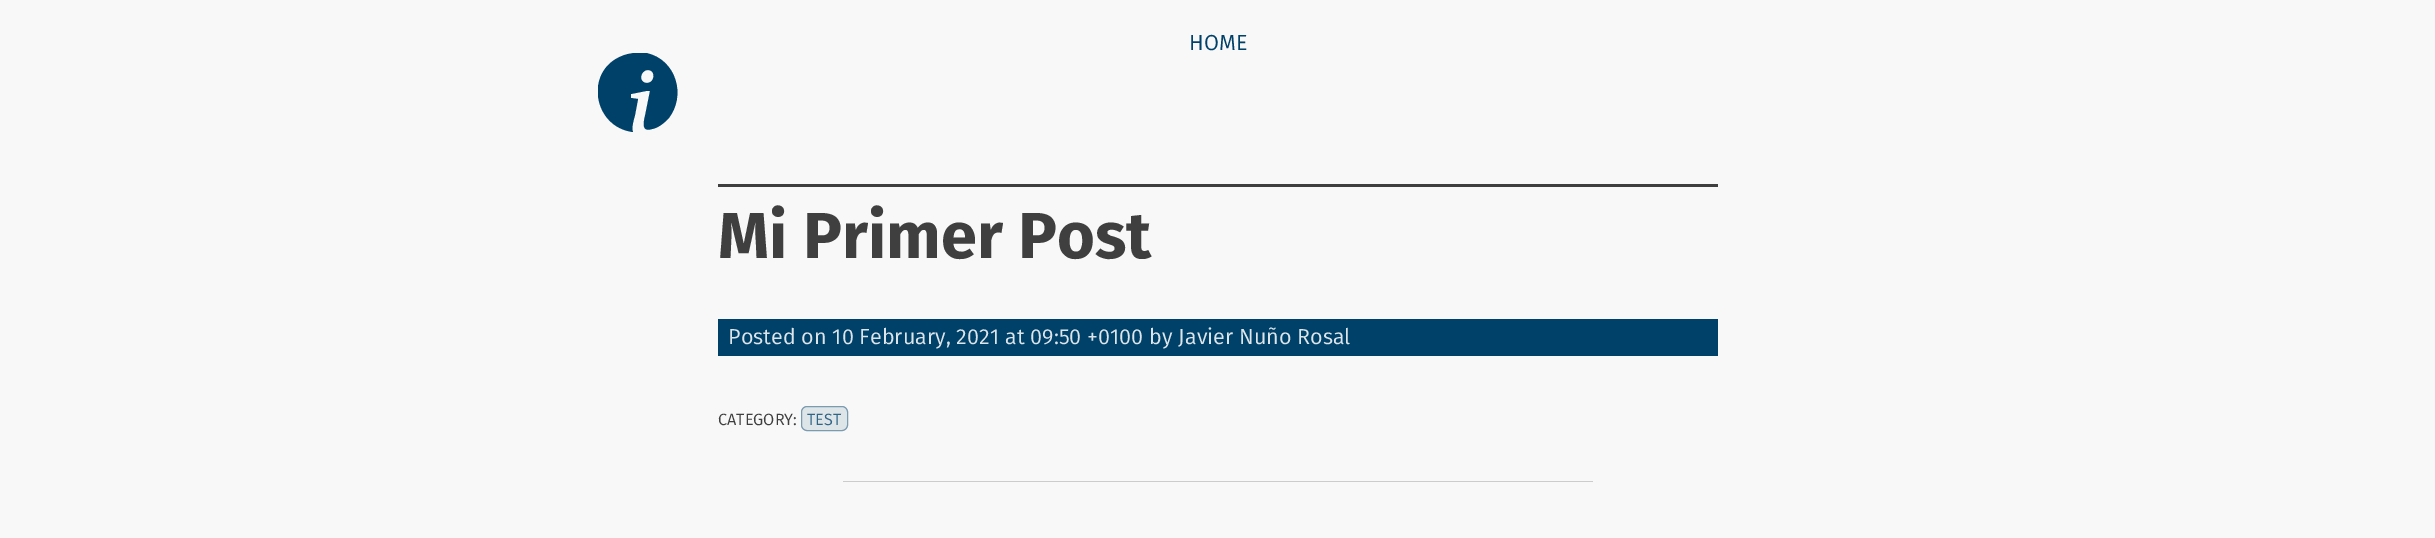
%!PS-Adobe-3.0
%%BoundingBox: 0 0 2435 538
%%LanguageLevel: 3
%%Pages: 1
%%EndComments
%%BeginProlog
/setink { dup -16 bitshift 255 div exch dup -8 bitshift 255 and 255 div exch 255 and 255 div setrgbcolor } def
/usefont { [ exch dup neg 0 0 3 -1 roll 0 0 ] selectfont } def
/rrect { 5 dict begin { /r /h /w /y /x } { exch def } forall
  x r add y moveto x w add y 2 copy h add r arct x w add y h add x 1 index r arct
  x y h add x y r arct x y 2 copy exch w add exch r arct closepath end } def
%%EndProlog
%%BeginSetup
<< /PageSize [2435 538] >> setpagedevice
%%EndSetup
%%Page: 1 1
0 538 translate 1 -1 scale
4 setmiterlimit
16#F8F8F8 setink
0 0 2435 538 rectfill
/FiraSans-Regular 21.7 usefont
16#00416A setink
1189 50 moveto (HOME) show
gsave
598 53 80 80 rectclip
633 132 moveto 593 127 584 71 622 56 curveto 629 53 638 52 646 53 curveto 676 59 687 96 668 119 curveto 664 123 658 128 652 129 curveto 639 133 645 118 646 111 curveto 650 91 lineto 646 91 lineto 631 94 lineto 631 98 lineto 638 99 lineto 635 115 lineto 634 119 631 128 633 132 curveto closepath 648 70 moveto 640 70 638 83 647 83 curveto 655 83 656 70 648 70 curveto closepath fill
grestore
16#3F3F3F setink
718 184 1000 3 rectfill
/FiraSans-Bold 65 usefont
718 258 moveto (Mi Primer Post) show
16#00416A setink
718 319 1000 37 rectfill
/FiraSans-Regular 21.7 usefont
16#DEE5E9 setink
728 344 moveto (Posted on 10 February, 2021 at 09:50 +0100 by Javier Nuño Rosal) show
/FiraSans-Regular 16.25 usefont
16#3F3F3F setink
718 425 moveto (CATEGORY:) show
16#DEE5E9 setink
801.5 406.5 46 24 5.5 rrect gsave fill grestore
16#7B9CB0 setink
stroke
16#316586 setink
807 425 moveto (TEST) show
16#CCCCCC setink
843 481 750 1 rectfill
showpage
%%EOF
